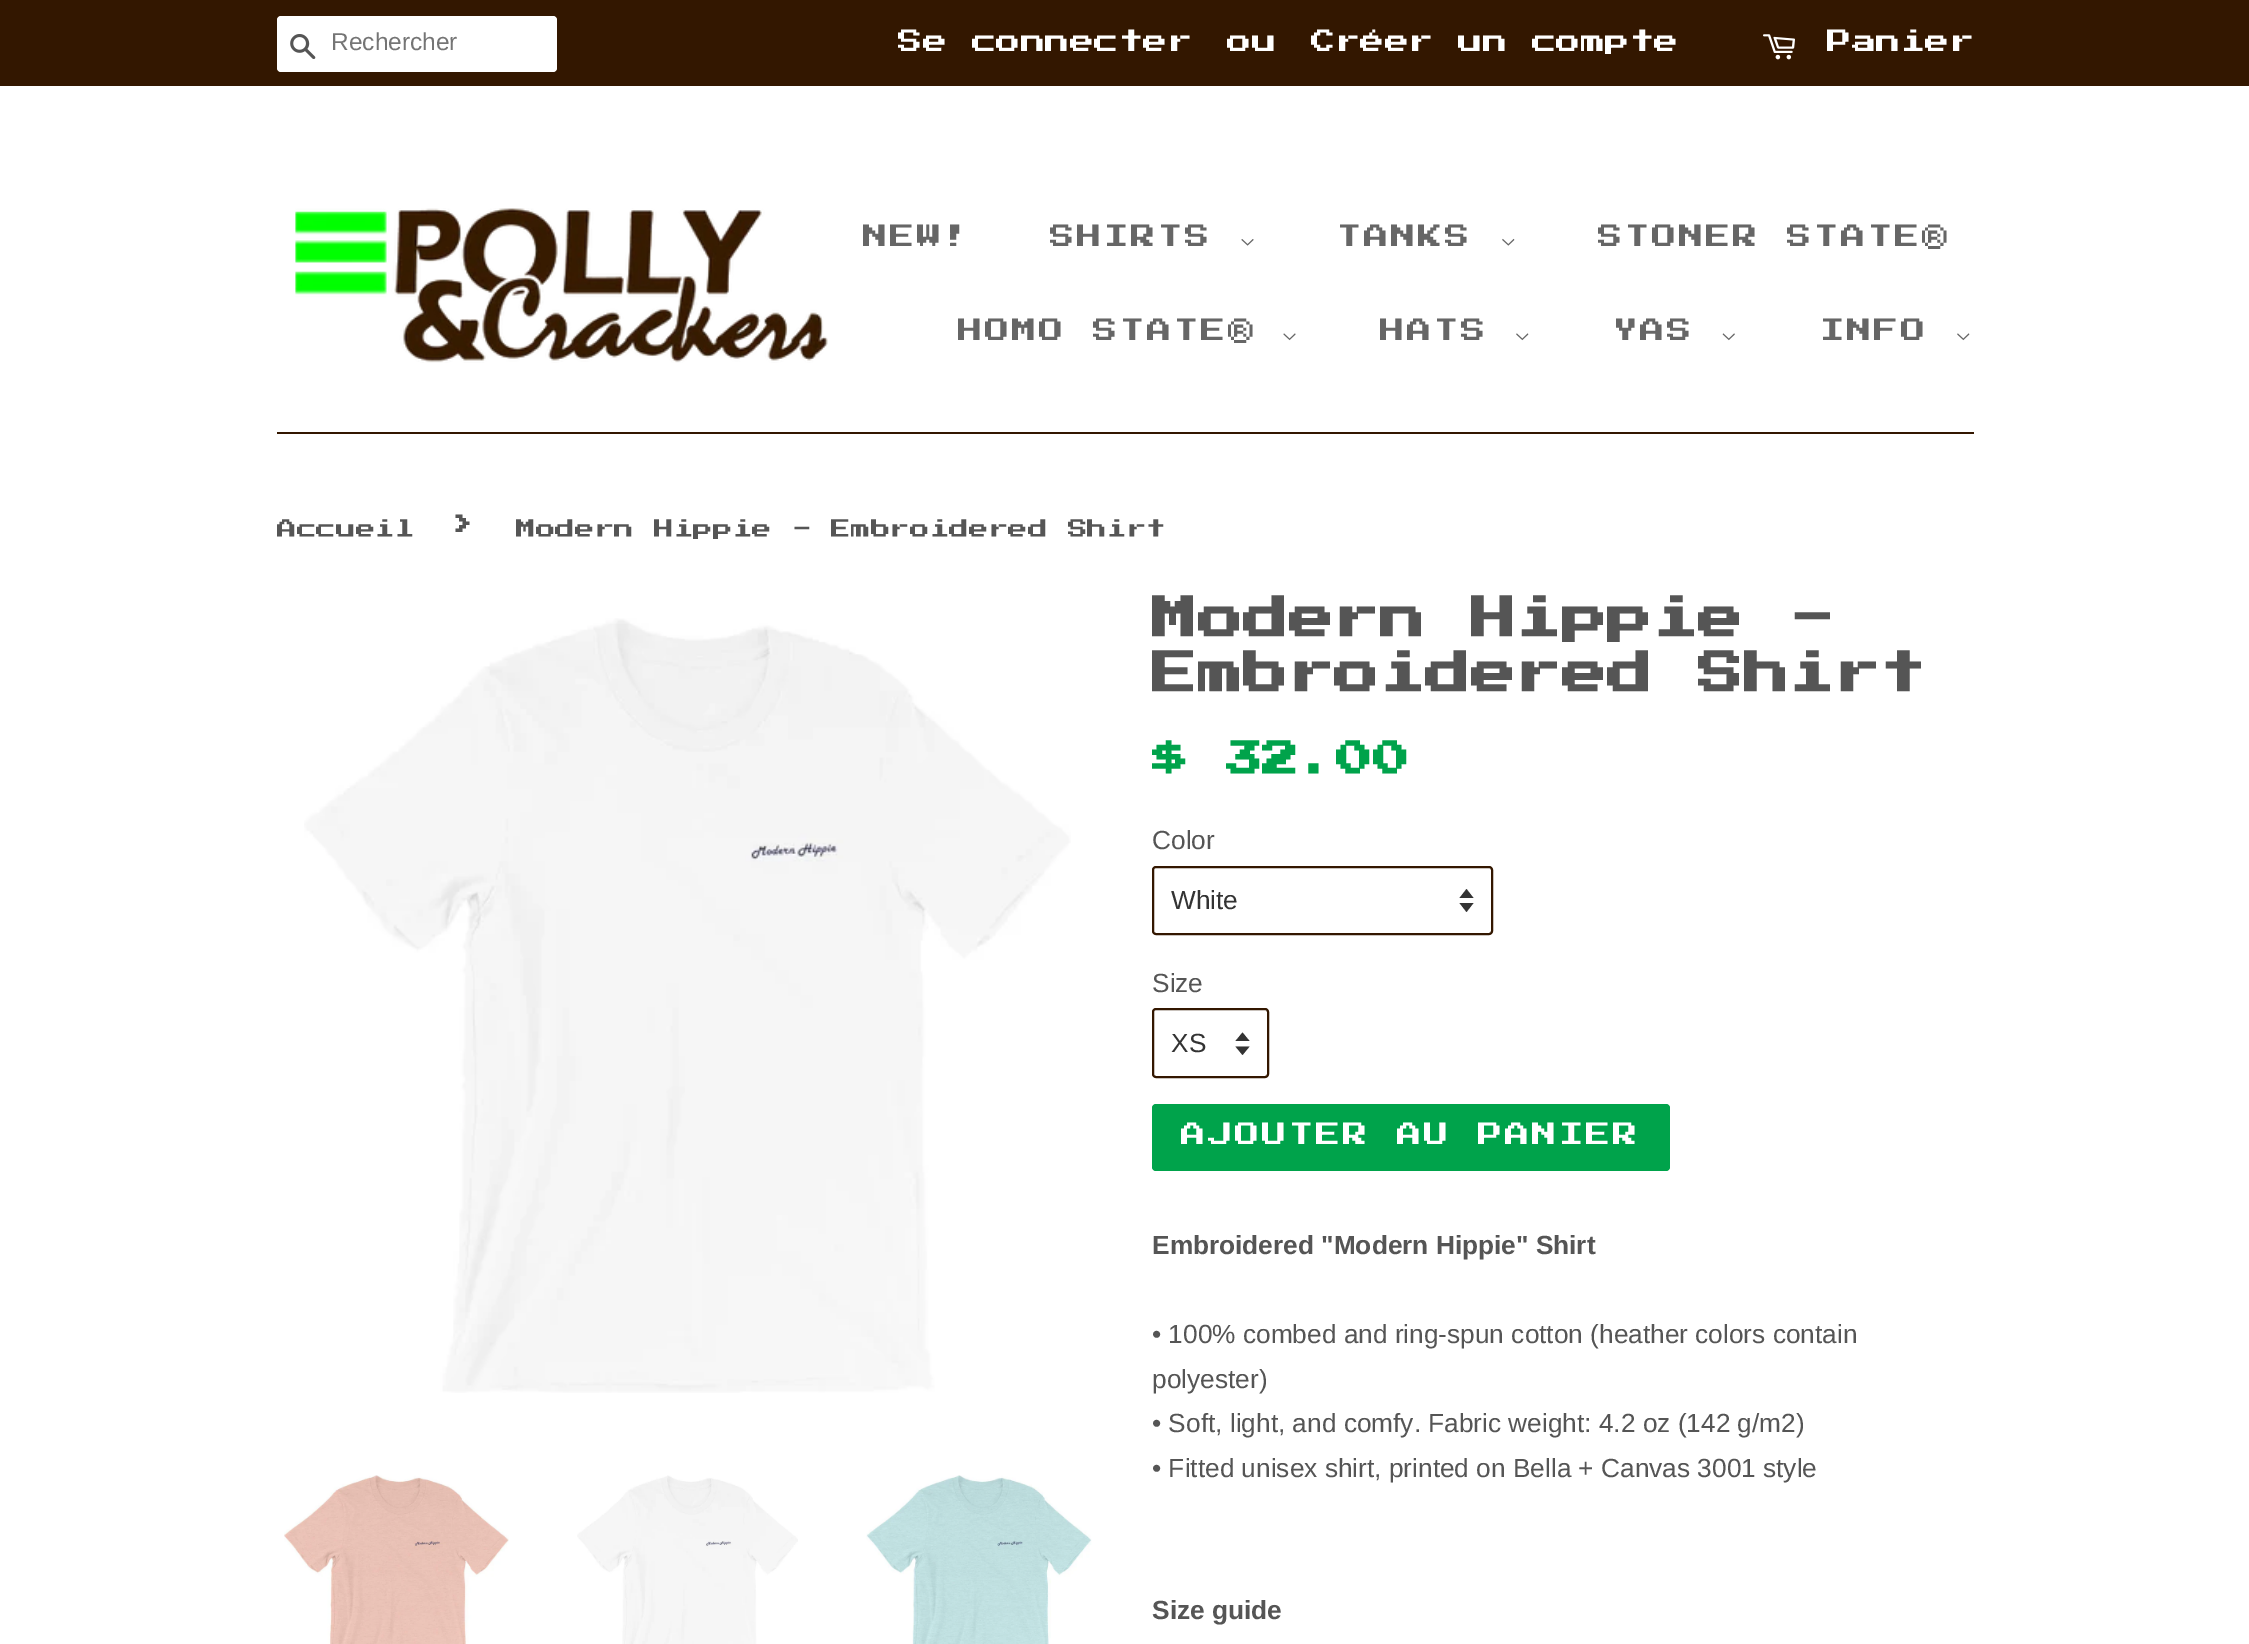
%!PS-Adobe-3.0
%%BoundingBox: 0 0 2249 1644
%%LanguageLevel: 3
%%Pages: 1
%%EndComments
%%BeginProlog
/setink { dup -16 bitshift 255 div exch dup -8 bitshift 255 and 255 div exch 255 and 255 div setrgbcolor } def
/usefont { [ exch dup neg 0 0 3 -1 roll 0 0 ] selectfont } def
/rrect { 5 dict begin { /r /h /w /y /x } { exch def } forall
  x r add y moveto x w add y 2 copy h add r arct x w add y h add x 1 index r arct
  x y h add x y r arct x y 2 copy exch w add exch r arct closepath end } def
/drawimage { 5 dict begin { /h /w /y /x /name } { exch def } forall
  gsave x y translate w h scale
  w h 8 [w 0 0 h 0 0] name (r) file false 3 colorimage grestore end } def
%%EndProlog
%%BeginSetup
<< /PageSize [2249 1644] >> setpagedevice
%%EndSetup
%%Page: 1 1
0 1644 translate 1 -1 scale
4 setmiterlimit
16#FFFFFF setink
0 0 2249 1644 rectfill
16#331700 setink
0 0 2249 86 rectfill
16#FFFFFF setink
277 16 280 56 4 rrect fill
(img1.raw) 290 34 26 25 drawimage
/LiberationSans-Regular 24.5 usefont
16#757575 setink
331 50 moveto (Rechercher) show
/PressStart2P-Regular 24.5 usefont
16#FFFFFF setink
[
    [(Se connecter) 898 54]
    [(ou) 1227 54]
    [(Créer un compte) 1311 54]
] { aload pop moveto show } forall
(img2.raw) 1763 34 32 26 drawimage
1827 54 moveto (Panier) show
16#331700 setink
277 432 1697 2 rectfill
(img3.raw) 295 208 533 155 drawimage
16#666666 setink
863 249 moveto 2.5 0 (NEW!) ashow
1050 249 moveto 2.5 0 (SHIRTS) ashow
(img4.raw) 1241 239 13 7 drawimage
1337 249 moveto 2.5 0 (TANKS) ashow
(img5.raw) 1502 238 13 8 drawimage
1598 249 moveto 2.5 0 (STONER STATE®) ashow
958 343 moveto 2.5 0 (HOMO STATE®) ashow
(img6.raw) 1283 333 13 8 drawimage
1380 343 moveto 2.5 0 (HATS) ashow
(img7.raw) 1516 333 13 8 drawimage
1613 343 moveto 2.5 0 (YAS) ashow
(img8.raw) 1722 333 13 8 drawimage
1820 343 moveto 2.5 0 (INFO) ashow
(img7.raw) 1957 333 13 8 drawimage
/PressStart2P-Regular 19.7 usefont
16#555555 setink
277 539 moveto (Accueil) show
/PressStart2P-Regular 28 usefont
452 539 moveto (›) show
/PressStart2P-Regular 19.7 usefont
516 539 moveto (Modern Hippie - Embroidered Shirt) show
(img9.raw) 304 618 767 775 drawimage
(img10.raw) 284 1475 225 169 drawimage
(img11.raw) 577 1475 221 169 drawimage
(img12.raw) 866 1475 226 169 drawimage
/PressStart2P-Bold 45.5 usefont
1152 642 moveto (Modern Hippie -) show
1152 697 moveto (Embroidered Shirt) show
/PressStart2P-Bold 36.75 usefont
16#00A34B setink
1152 778 moveto ($ 32.00) show
/LiberationSans-Regular 26.25 usefont
16#555555 setink
1152 849 moveto (Color) show
16#333333 setink
1459.5 903 moveto 1466.5 912 lineto 1473.5 903 lineto closepath 1466.5 889 moveto 1459.5 898 lineto 1473.5 898 lineto closepath fill
16#331700 setink
2 setlinewidth
1153 867 339 67 3 rrect stroke
16#333333 setink
1171 909 moveto (White) show
16#555555 setink
1152 992 moveto (Size) show
16#333333 setink
1235.5 1046.5 moveto 1242.5 1055 lineto 1249.5 1046.5 lineto closepath 1242.5 1032.5 moveto 1235.5 1041 lineto 1249.5 1041 lineto closepath fill
16#331700 setink
1153 1009 115 68 3 rrect stroke
16#333333 setink
1171 1052 moveto (XS) show
16#00A34B setink
1152 1104 518 67 4 rrect fill
/PressStart2P-Regular 24.5 usefont
16#FFFFFF setink
1181 1147 moveto 2.5 0 (AJOUTER AU PANIER) ashow
/LiberationSans-Bold 26.25 usefont
16#555555 setink
1152 1254 moveto (Embroidered "Modern Hippie" Shirt) show
/LiberationSans-Regular 26.25 usefont
[
    [(• 100% combed and ring-spun cotton \(heather colors contain) 1152 1343]
    [(polyester\)) 1152 1388]
    [(• Soft, light, and comfy. Fabric weight: 4.2 oz \(142 g/m2\)) 1152 1432]
    [(• Fitted unisex shirt, printed on Bella + Canvas 3001 style) 1152 1477]
] { aload pop moveto show } forall
/LiberationSans-Bold 26.25 usefont
1152 1619 moveto (Size guide) show
showpage
%%EOF
